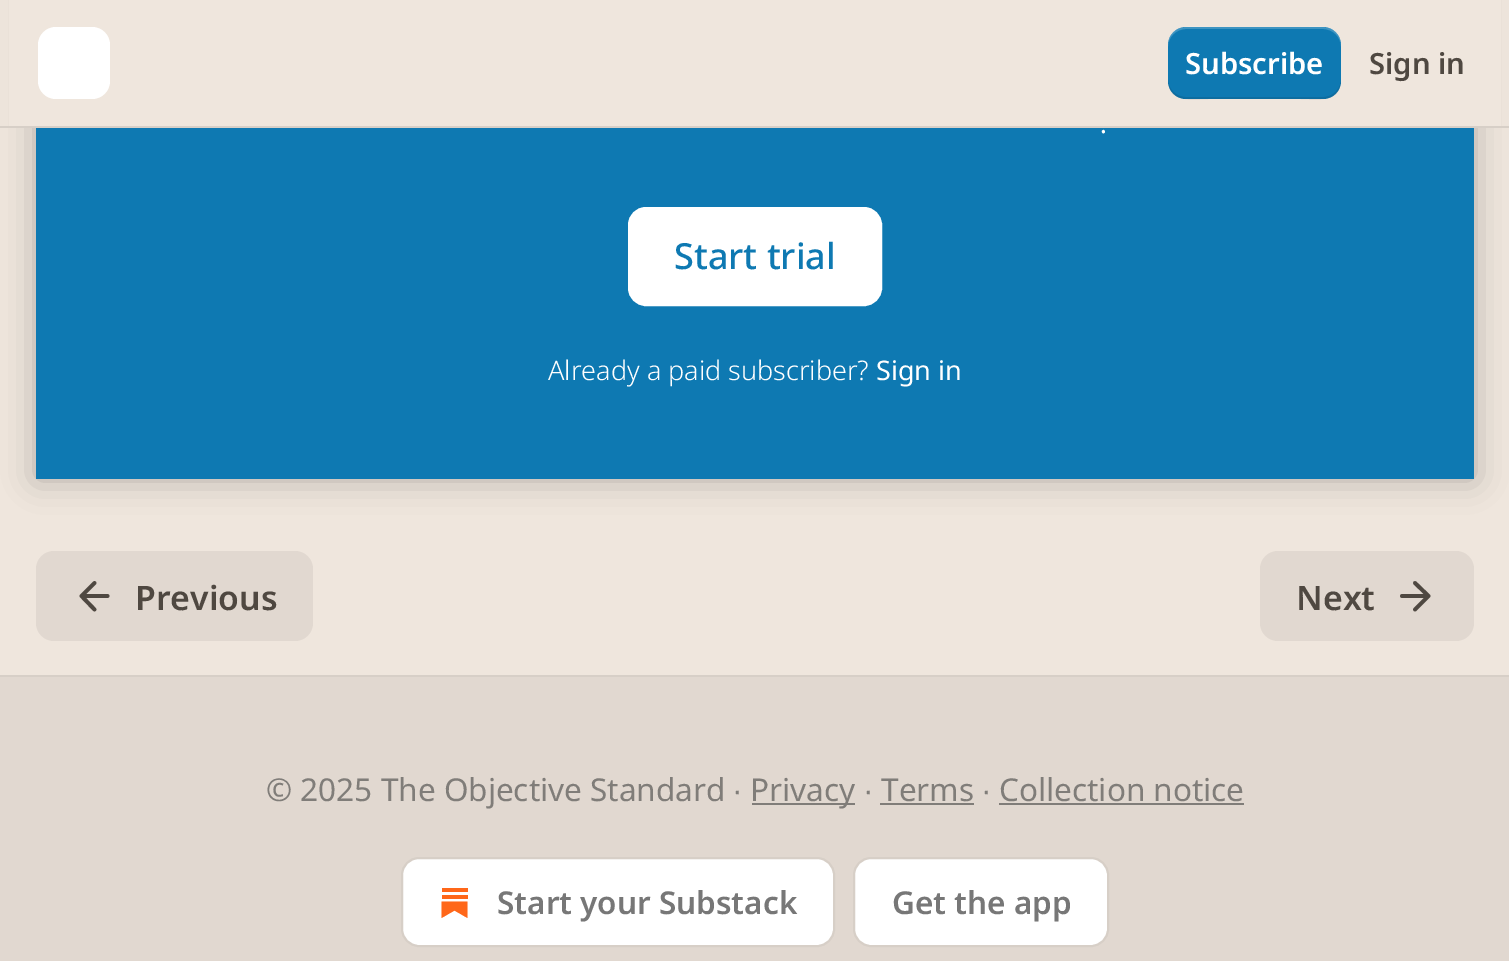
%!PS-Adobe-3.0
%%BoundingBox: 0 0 1509 961
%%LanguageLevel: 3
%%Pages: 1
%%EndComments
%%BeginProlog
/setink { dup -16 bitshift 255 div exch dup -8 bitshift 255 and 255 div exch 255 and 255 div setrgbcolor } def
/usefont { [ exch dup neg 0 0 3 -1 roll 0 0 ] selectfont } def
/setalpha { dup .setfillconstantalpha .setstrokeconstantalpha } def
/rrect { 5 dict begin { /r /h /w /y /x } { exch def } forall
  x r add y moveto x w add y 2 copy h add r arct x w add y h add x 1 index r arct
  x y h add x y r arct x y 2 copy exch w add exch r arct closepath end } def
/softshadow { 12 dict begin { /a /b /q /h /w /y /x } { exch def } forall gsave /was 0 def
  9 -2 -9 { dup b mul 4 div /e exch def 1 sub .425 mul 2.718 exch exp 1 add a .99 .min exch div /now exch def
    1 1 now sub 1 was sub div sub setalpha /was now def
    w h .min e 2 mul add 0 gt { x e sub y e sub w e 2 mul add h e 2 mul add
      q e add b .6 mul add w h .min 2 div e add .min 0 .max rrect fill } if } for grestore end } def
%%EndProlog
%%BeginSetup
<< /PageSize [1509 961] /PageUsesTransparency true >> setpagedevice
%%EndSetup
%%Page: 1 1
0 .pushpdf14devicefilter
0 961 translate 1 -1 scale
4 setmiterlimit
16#EFE6DD setink
0 0 1509 961 rectfill
16#0E79B2 setink
36 128 1438 351 rectfill
16#FFFFFF setink
629 208 252 97 17 rrect gsave fill grestore
2 setlinewidth
stroke
gsave
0 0 moveto 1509 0 lineto 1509 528 lineto 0 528 lineto closepath 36 -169 moveto 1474 -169 lineto 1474 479 lineto 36 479 lineto closepath eoclip newpath
16#000000 setink
36 -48 1438 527 0 16 0.25 softshadow
grestore
16#EFE6DD setink
9 0 1492 126 rectfill
16#D7CFC7 setink
0 126 1509 2 rectfill
16#FFFFFF setink
38 27 72 72 18 rrect fill
16#0E79B2 setink
1168 27 173 72 18 rrect fill
0.1 setalpha
16#000000 setink
1168 79 moveto 1168 104 1191 99 1209 99 curveto 1300 99 lineto 1318 99 1341 104 1341 79 curveto 1341 89 1333 97 1323 97 curveto 1186 97 lineto 1176 97 1168 89 1168 79 curveto closepath fill
0.2 setalpha
16#FFFFFF setink
1186 29 moveto 1323 29 lineto 1333 29 1341 37 1341 47 curveto 1341 22 1318 27 1300 27 curveto 1209 27 lineto 1191 27 1168 22 1168 47 curveto 1168 37 1176 29 1186 29 curveto closepath fill
/NotoSans-SemiBold 29.25 usefont
1 setalpha
1185 74 moveto (Subscribe) show
16#4F4841 setink
1369 74 moveto (Sign in) show
/NotoSans-Light 36 usefont
16#FFFFFF setink
1099 133 moveto (.) show
/NotoSans-Medium 36 usefont
16#0E79B2 setink
674 269 moveto (Start trial) show
/NotoSans-Light 27 usefont
16#FFFFFF setink
548 380 moveto (Already a paid subscriber?) show
/NotoSans-Regular 27 usefont
876 380 moveto (Sign in) show
16#E1D8D0 setink
36 551 277 90 18 rrect fill
16#4F4841 setink
3.8 setlinewidth
1 setlinecap
1 setlinejoin
94.5 609.5 moveto 81.5 596 lineto 94.5 583 lineto 107.5 596 moveto 81.5 596 lineto stroke
/NotoSans-SemiBold 33.75 usefont
135 610 moveto (Previous) show
16#E1D8D0 setink
1260 551 214 90 18 rrect fill
16#4F4841 setink
1296 610 moveto (Next) show
1402 596 moveto 1428.5 596 lineto 1415 583 moveto 1428.5 596 lineto 1415 609.5 lineto stroke
16#E1D8D0 setink
0 677 1509 284 rectfill
16#D7CFC7 setink
0 675 1509 2 rectfill
/NotoSans-Regular 31.5 usefont
16#807D79 setink
266 801 moveto (© 2025 The Objective Standard) show
/LiberationSans-Regular 31.5 usefont
733 801 moveto (∙) show
752 803 103 2 rectfill
/NotoSans-Regular 31.5 usefont
750 801 moveto (Privacy) show
/LiberationSans-Regular 31.5 usefont
864 801 moveto (∙) show
/NotoSans-Regular 31.5 usefont
881 801 moveto (Terms) show
880 803 94 2 rectfill
/LiberationSans-Regular 31.5 usefont
982 801 moveto (∙) show
/NotoSans-Regular 31.5 usefont
999 801 moveto (Collection notice) show
999 803 245 2 rectfill
16#FFFFFF setink
402 858 432 88 17 rrect gsave fill grestore
16#D7CFC7 setink
2 setlinewidth
0 setlinecap
0 setlinejoin
stroke
16#FF6719 setink
442 895 26 4 rectfill
441.5 901.5 moveto 441.5 918 lineto 454.5 910.5 lineto 467.5 918 lineto 467.5 901.5 lineto closepath fill
442 888 26 4 rectfill
/NotoSans-SemiBold 31.5 usefont
16#777777 setink
497 914 moveto (Start your Substack) show
16#FFFFFF setink
854 858 254 88 17 rrect gsave fill grestore
16#D7CFC7 setink
stroke
16#777777 setink
892 914 moveto (Get the app) show
.poppdf14devicefilter showpage
%%EOF
